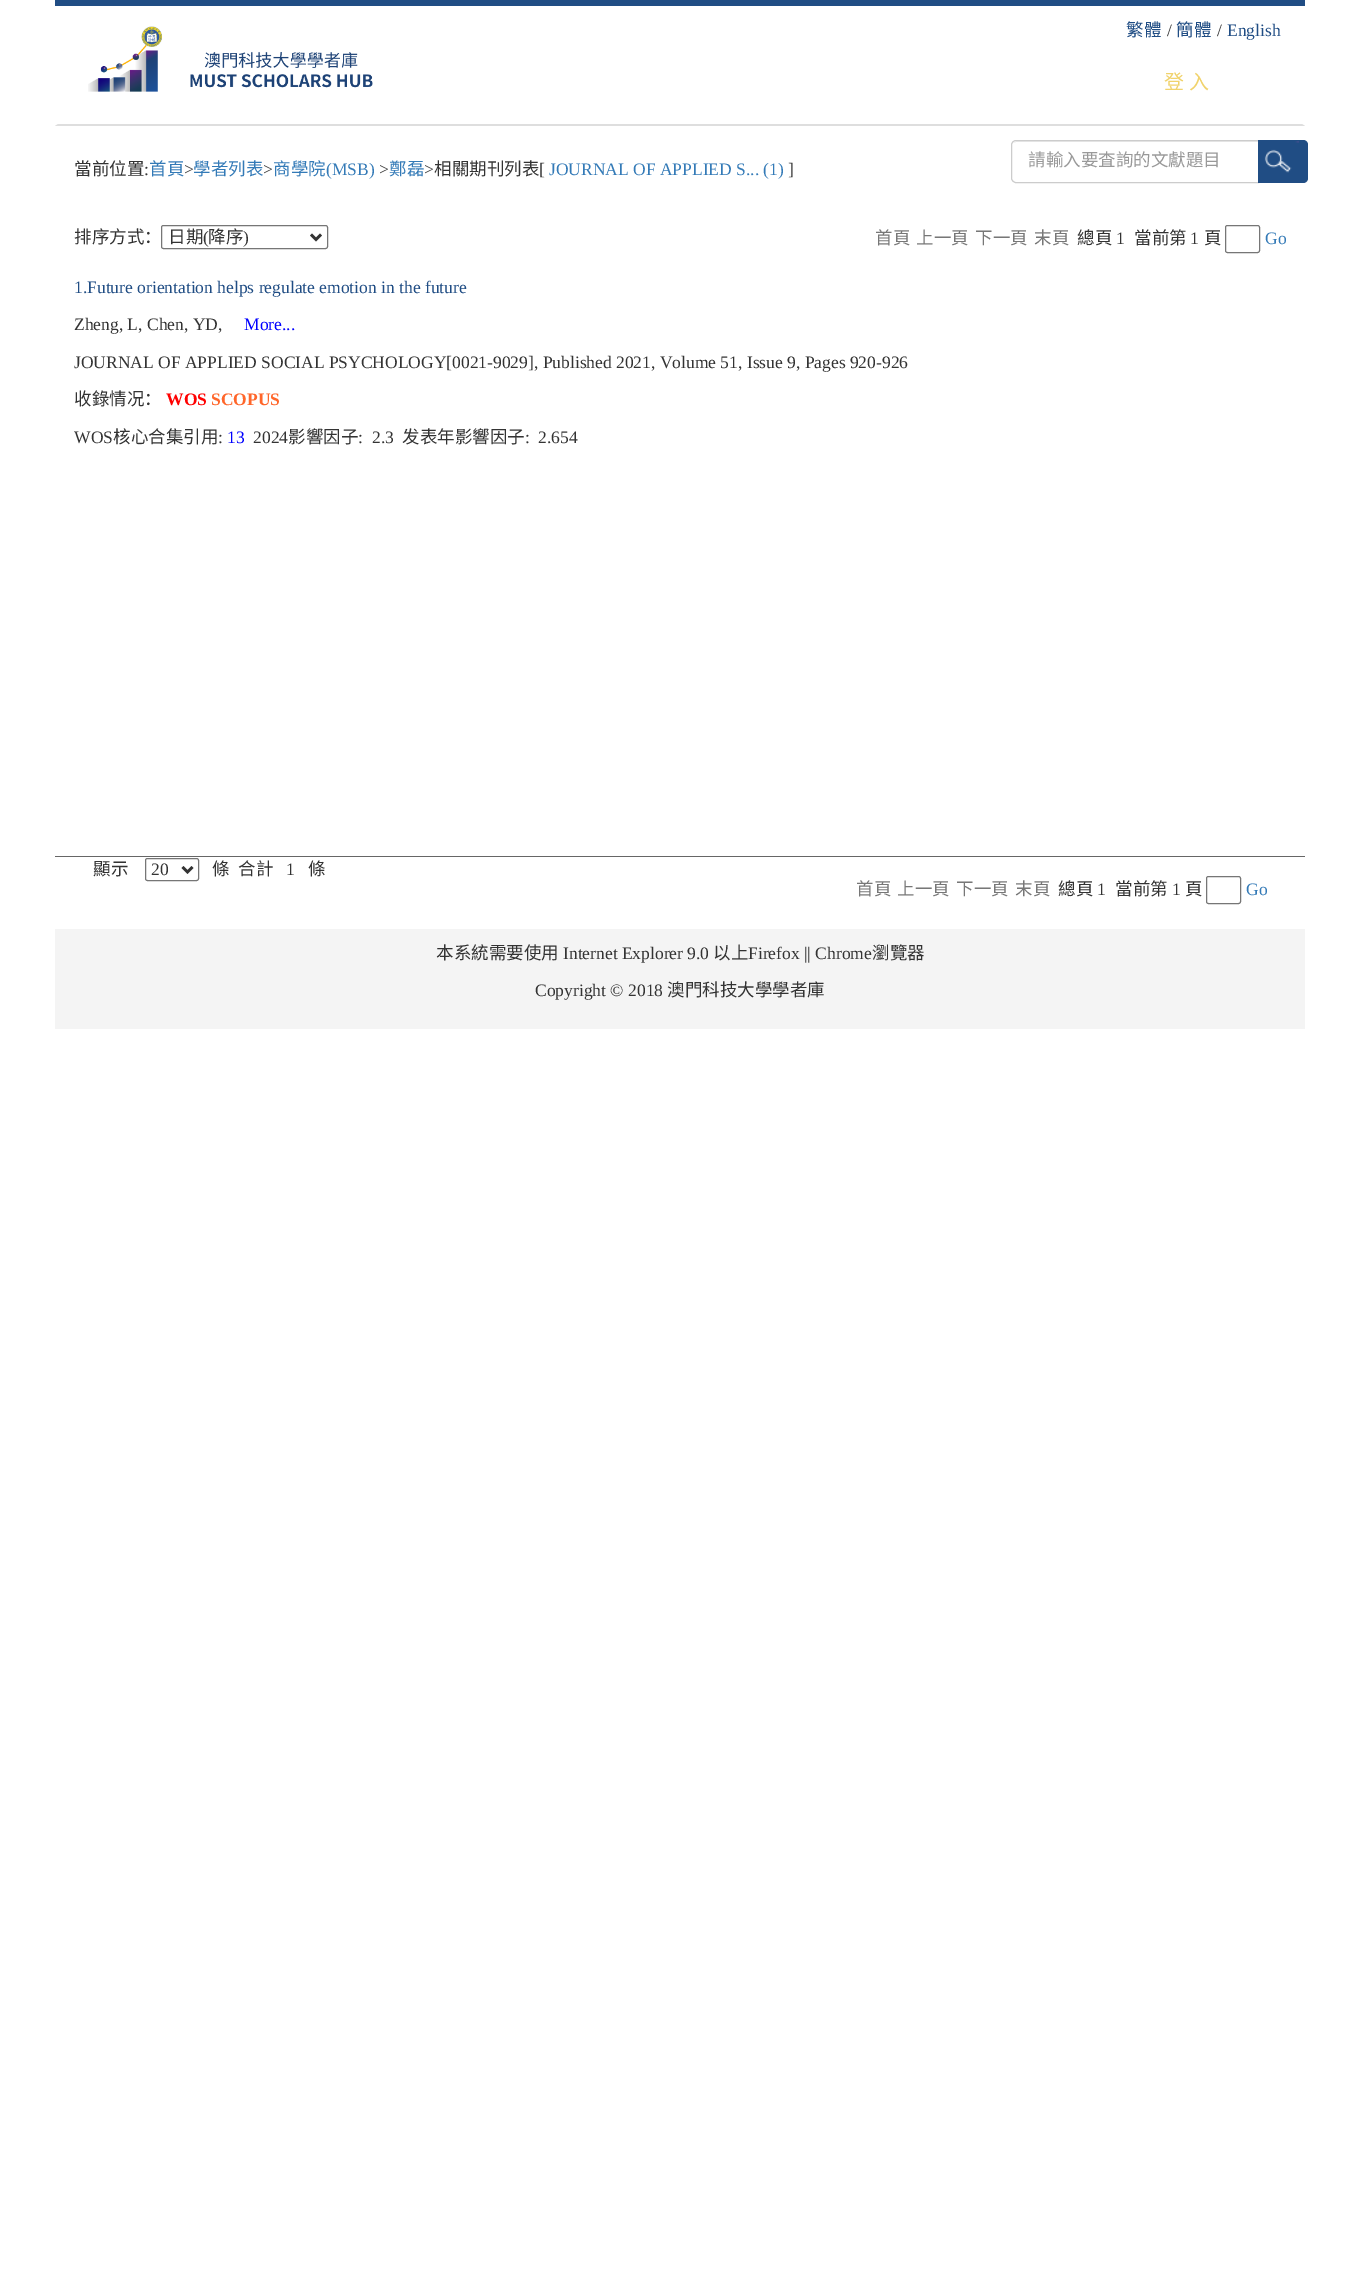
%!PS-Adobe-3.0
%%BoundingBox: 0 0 1359 2270
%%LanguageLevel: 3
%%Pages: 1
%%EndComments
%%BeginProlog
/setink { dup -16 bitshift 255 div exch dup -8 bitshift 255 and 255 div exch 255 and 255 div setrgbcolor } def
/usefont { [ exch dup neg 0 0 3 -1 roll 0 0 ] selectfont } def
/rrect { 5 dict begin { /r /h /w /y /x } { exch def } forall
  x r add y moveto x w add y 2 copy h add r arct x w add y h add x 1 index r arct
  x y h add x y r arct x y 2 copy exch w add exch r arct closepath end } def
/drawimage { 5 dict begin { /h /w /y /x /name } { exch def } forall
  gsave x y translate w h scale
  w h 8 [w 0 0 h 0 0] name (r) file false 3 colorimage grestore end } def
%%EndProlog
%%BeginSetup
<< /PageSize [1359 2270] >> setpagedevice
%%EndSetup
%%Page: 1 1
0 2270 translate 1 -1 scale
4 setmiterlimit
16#FFFFFF setink
0 0 1359 2270 rectfill
16#204D84 setink
55 0 1250 6 rectfill
(img1.raw) 88 26 285 66 drawimage
/NotoSansCJKSC-Regular 17.5 usefont
1126 36 moveto (繁體) show
/LiberationSerif-Regular 17.5 usefont
16#333333 setink
1167 36 moveto (/) show
/NotoSansCJKSC-Regular 17.5 usefont
16#204D84 setink
1176 36 moveto (簡體) show
/LiberationSerif-Regular 17.5 usefont
16#333333 setink
1217 36 moveto (/) show
16#204D84 setink
1227 36 moveto (English) show
/NotoSansCJKSC-Regular 20 usefont
16#F1D36C setink
1164 89 moveto 1 0 32 (登 入) widthshow
16#DEDEDE setink
1305 126 moveto 55 126 lineto 58 124 lineto 1302 124 lineto closepath fill
/NotoSansCJKSC-Regular 17.5 usefont
16#333333 setink
74 175 moveto (當前位置) show
/LiberationSerif-Regular 17.5 usefont
144 175 moveto (:) show
/NotoSansCJKSC-Regular 17.5 usefont
16#337AB7 setink
149 175 moveto (首頁) show
/LiberationSerif-Regular 17.5 usefont
16#333333 setink
184 175 moveto (>) show
/NotoSansCJKSC-Regular 17.5 usefont
16#337AB7 setink
193 175 moveto (學者列表) show
/LiberationSerif-Regular 17.5 usefont
16#333333 setink
263 175 moveto (>) show
/NotoSansCJKSC-Regular 17.5 usefont
16#337AB7 setink
273 175 moveto (商學院) show
/LiberationSerif-Regular 17.5 usefont
326 175 moveto (\(MSB\)) show
16#333333 setink
379 175 moveto (>) show
/NotoSansCJKSC-Regular 17.5 usefont
16#337AB7 setink
389 175 moveto (鄭磊) show
/LiberationSerif-Regular 17.5 usefont
16#333333 setink
424 175 moveto (>) show
/NotoSansCJKSC-Regular 17.5 usefont
434 175 moveto (相關期刊列表) show
/LiberationSerif-Regular 17.5 usefont
539 175 moveto ([) show
16#337AB7 setink
549 175 moveto (JOURNAL OF APPLIED S... \(1\)) show
16#333333 setink
788 175 moveto (]) show
16#ECECEC setink
1016 142 moveto 1258 142 lineto 1258 141 lineto 1016 141 lineto 1014 143 lineto closepath fill
16#CCCCCC setink
1016 140.5 moveto 1258.5 140.5 lineto 1258.5 182.5 lineto 1016 182.5 lineto 1013.5 182.5 1011.5 180.5 1011.5 178 curveto 1011.5 145 lineto 1011.5 142.5 1013.5 140.5 1016 140.5 curveto closepath stroke
/NotoSansCJKSC-Regular 17.5 usefont
16#999999 setink
1028 166 moveto (請輸入要査詢的文獻題目) show
16#204D84 setink
1258 140 moveto 1303 140 lineto 1306 140 1308 142 1308 145 curveto 1308 178 lineto 1308 181 1306 183 1303 183 curveto 1258 183 lineto closepath fill
(img2.raw) 1264 141 35 32 drawimage
16#333333 setink
74 243 moveto (排序方式：) show
16#767676 setink
161.5 225.5 166 23 2 rrect stroke
16#333333 setink
2.5 setlinewidth
311 234.5 moveto 316 239.5 lineto 321 234.5 lineto stroke
168 243 moveto (日期) show
/LiberationSerif-Regular 17.5 usefont
203 243 moveto (\() show
/NotoSansCJKSC-Regular 17.5 usefont
208 243 moveto (降序) show
/LiberationSerif-Regular 17.5 usefont
243 243 moveto (\)) show
/NotoSansCJKSC-Regular 17.5 usefont
16#777777 setink
[
    [(首頁) 875 244]
    [(上一頁) 916 244]
    [(下一頁) 975 244]
    [(末頁) 1034 244]
] { aload pop moveto show } forall
16#333333 setink
1077 244 moveto (總頁) show
/LiberationSerif-Regular 17.5 usefont
1116 244 moveto (1) show
/NotoSansCJKSC-Regular 17.5 usefont
1134 244 moveto (當前第) show
/LiberationSerif-Regular 17.5 usefont
1190 244 moveto (1) show
/NotoSansCJKSC-Regular 17.5 usefont
1204 244 moveto (頁) show
16#767676 setink
1 setlinewidth
1225.5 225.5 34 27 2 rrect stroke
/LiberationSerif-Regular 17.5 usefont
16#337AB7 setink
1265 244 moveto (Go) show
16#204D84 setink
74 293 moveto (1.Future orientation helps regulate emotion in the future) show
16#333333 setink
74 330 moveto (Zheng, L, Chen, YD,) show
16#0000FF setink
244 330 moveto (More...) show
16#333333 setink
74 368 moveto (JOURNAL OF APPLIED SOCIAL PSYCHOLOGY[0021-9029], Published 2021, Volume 51, Issue 9, Pages 920-926) show
/NotoSansCJKSC-Regular 17.5 usefont
74 405 moveto (收錄情况：) show
/LiberationSerif-Bold 17.5 usefont
16#FF0000 setink
166 405 moveto (WOS) show
16#FF662A setink
211 405 moveto (SCOPUS) show
/LiberationSerif-Regular 17.5 usefont
16#333333 setink
74 443 moveto (WOS) show
/NotoSansCJKSC-Regular 17.5 usefont
113 443 moveto (核心合集引用) show
/LiberationSerif-Regular 17.5 usefont
218 443 moveto (:) show
16#0000FF setink
227 443 moveto (13) show
16#333333 setink
253 443 moveto (2024) show
/NotoSansCJKSC-Regular 17.5 usefont
288 443 moveto (影響因子) show
/LiberationSerif-Regular 17.5 usefont
358 443 moveto (:) show
372 443 moveto (2.3) show
/NotoSansCJKSC-Regular 17.5 usefont
402 443 moveto (发表年影響因子) show
/LiberationSerif-Regular 17.5 usefont
525 443 moveto (:) show
538 443 moveto (2.654) show
16#666666 setink
55 856 1250 1 rectfill
/NotoSansCJKSC-Regular 17.5 usefont
16#333333 setink
93 875 moveto (顯示) show
16#767676 setink
145.5 858.5 53 22 2 rrect stroke
16#333333 setink
2.5 setlinewidth
182.5 867 moveto 187.5 872 lineto 192.5 867 lineto stroke
/LiberationSerif-Regular 17.5 usefont
151 875 moveto (20) show
/NotoSansCJKSC-Regular 17.5 usefont
212 875 moveto (條) show
238 875 moveto (合計) show
/LiberationSerif-Regular 17.5 usefont
286 875 moveto (1) show
/NotoSansCJKSC-Regular 17.5 usefont
308 875 moveto (條) show
16#777777 setink
[
    [(首頁) 856 895]
    [(上一頁) 897 895]
    [(下一頁) 956 895]
    [(末頁) 1015 895]
] { aload pop moveto show } forall
16#333333 setink
1058 895 moveto (總頁) show
/LiberationSerif-Regular 17.5 usefont
1097 895 moveto (1) show
/NotoSansCJKSC-Regular 17.5 usefont
1115 895 moveto (當前第) show
/LiberationSerif-Regular 17.5 usefont
1172 895 moveto (1) show
/NotoSansCJKSC-Regular 17.5 usefont
1185 895 moveto (頁) show
16#767676 setink
1 setlinewidth
1206.5 876.5 34 27 2 rrect stroke
/LiberationSerif-Regular 17.5 usefont
16#337AB7 setink
1246 895 moveto (Go) show
16#F4F4F4 setink
55 929 1250 100 rectfill
/NotoSansCJKSC-Regular 17.5 usefont
16#333333 setink
436 959 moveto (本系統需要使用) show
/LiberationSerif-Regular 17.5 usefont
563 959 moveto (Internet Explorer 9.0) show
/NotoSansCJKSC-Regular 17.5 usefont
713 959 moveto (以上) show
/LiberationSerif-Regular 17.5 usefont
748 959 moveto (Firefox || Chrome) show
/NotoSansCJKSC-Regular 17.5 usefont
872 959 moveto (瀏覽器) show
/LiberationSerif-Regular 17.5 usefont
535 996 moveto (Copyright © 2018) show
/NotoSansCJKSC-Regular 17.5 usefont
667 996 moveto (澳門科技大學學者庫) show
showpage
%%EOF
